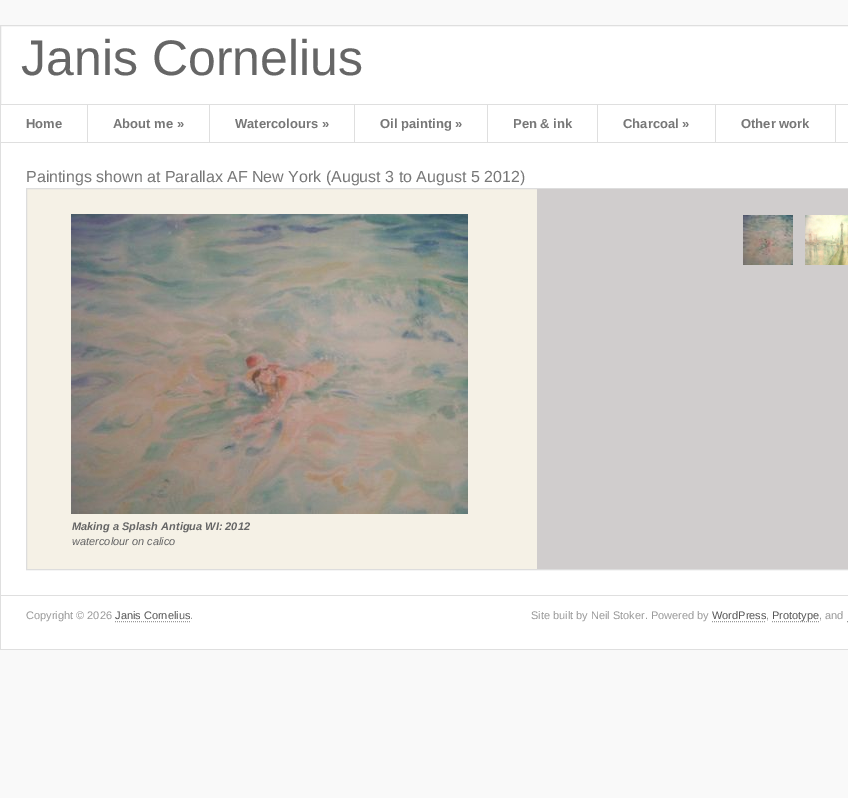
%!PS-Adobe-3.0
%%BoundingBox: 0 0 848 798
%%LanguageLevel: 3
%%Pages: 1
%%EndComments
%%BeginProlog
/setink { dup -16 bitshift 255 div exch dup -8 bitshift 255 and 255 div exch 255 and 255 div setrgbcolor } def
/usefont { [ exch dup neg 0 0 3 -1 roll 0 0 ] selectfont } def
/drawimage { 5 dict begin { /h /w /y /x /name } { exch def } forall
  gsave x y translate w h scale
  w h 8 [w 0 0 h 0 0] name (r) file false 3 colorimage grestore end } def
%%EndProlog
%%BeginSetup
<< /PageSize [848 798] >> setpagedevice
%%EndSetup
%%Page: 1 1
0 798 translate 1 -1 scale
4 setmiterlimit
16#F9F9F9 setink
0 0 848 798 rectfill
16#FFFFFF setink
0.5 25.5 moveto 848.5 25.5 lineto 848.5 104.5 lineto 0.5 104.5 lineto closepath gsave fill grestore
16#DFDFDF setink
stroke
/LiberationSans-Regular 50 usefont
16#666666 setink
21 75 moveto (Janis Cornelius) show
[
    [1 105 847 37 16#FFFFFF]
    [0 142 848 1 16#DFDFDF]
    [0 105 1 38 16#DFDFDF]
    [87 105 1 37 16#DFDFDF]
] { aload pop setink rectfill } forall
/LiberationSans-Bold 13 usefont
16#777777 setink
26 128 moveto (Home) show
16#DFDFDF setink
209 105 1 37 rectfill
16#777777 setink
113 128 moveto (About me ») show
16#DFDFDF setink
354 105 1 37 rectfill
16#777777 setink
235 128 moveto (Watercolours ») show
16#DFDFDF setink
487 105 1 37 rectfill
16#777777 setink
380 128 moveto (Oil painting ») show
16#DFDFDF setink
597 105 1 37 rectfill
16#777777 setink
513 128 moveto (Pen & ink) show
16#DFDFDF setink
715 105 1 37 rectfill
16#777777 setink
623 128 moveto (Charcoal ») show
16#DFDFDF setink
835 105 1 37 rectfill
16#777777 setink
741 128 moveto (Other work) show
[
    [1 143 847 452 16#FFFFFF]
    [0 595 848 1 16#DFDFDF]
    [0 143 1 453 16#DFDFDF]
] { aload pop setink rectfill } forall
/LiberationSans-Regular 16 usefont
16#777777 setink
26 182 moveto (Paintings shown at Parallax AF New York \(August 3 to August 5 2012\)) show
16#F5F1E6 setink
27 189 510 380 rectfill
16#DDDDDD setink
26.5 188.5 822 381 rectstroke
16#D0CDCD setink
537 189 311 380 rectfill
(img1.raw) 805 215 43 50 drawimage
(img2.raw) 743 215 50 50 drawimage
(img3.raw) 71 214 397 300 drawimage
/LiberationSans-BoldItalic 11 usefont
16#666666 setink
72 530 moveto (Making a Splash Antigua WI: 2012) show
/LiberationSans-Italic 11 usefont
72 545 moveto (watercolour on calico) show
[
    [1 596 847 53 16#FFFFFF]
    [0 649 848 1 16#DFDFDF]
    [0 596 1 54 16#DFDFDF]
] { aload pop setink rectfill } forall
/LiberationSans-Regular 11 usefont
16#999999 setink
26 619 moveto (Copyright © 2026) show
16#555555 setink
115 619 moveto (Janis Cornelius) show
16#999999 setink
[1 1] 0 setdash
115 621.5 moveto 190 621.5 lineto stroke
190 619 moveto (.) show
531 619 moveto (Site built by Neil Stoker. Powered by) show
16#555555 setink
712 619 moveto (WordPress) show
16#999999 setink
712 621.5 moveto 766 621.5 lineto stroke
766 619 moveto (,) show
772 621.5 moveto 819 621.5 lineto stroke
16#555555 setink
772 619 moveto (Prototype) show
16#999999 setink
819 619 moveto (, and) show
847 621.5 moveto 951 621.5 lineto stroke
showpage
%%EOF
